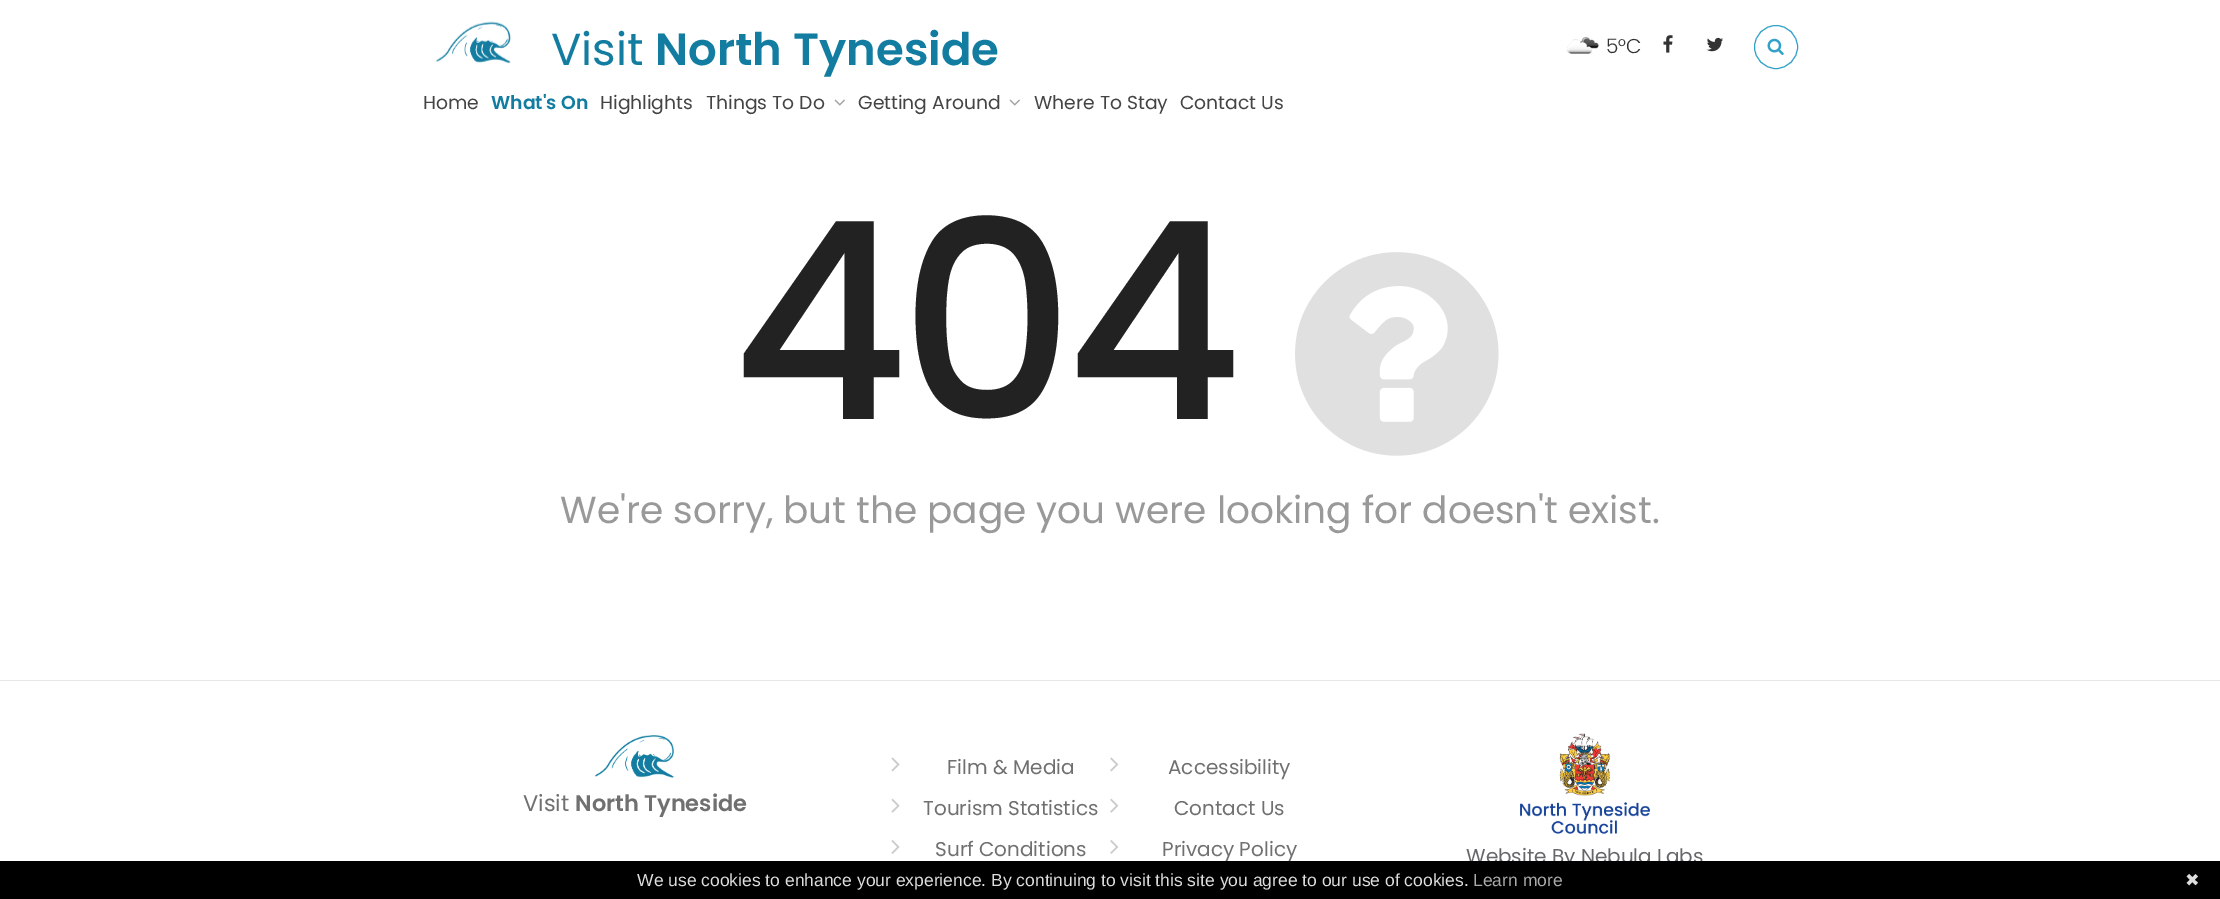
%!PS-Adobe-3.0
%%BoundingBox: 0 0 2220 899
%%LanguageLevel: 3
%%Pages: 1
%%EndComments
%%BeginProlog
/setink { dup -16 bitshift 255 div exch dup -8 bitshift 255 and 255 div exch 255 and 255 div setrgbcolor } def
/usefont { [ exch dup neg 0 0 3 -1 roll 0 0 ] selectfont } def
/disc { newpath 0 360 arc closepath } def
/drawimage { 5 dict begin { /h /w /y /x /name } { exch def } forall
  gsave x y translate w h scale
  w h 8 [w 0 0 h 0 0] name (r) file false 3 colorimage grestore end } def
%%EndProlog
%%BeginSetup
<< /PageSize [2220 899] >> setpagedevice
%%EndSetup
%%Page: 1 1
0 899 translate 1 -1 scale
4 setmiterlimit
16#FFFFFF setink
0 0 2220 899 rectfill
(img1.raw) 436 21 75 43 drawimage
/Poppins-Regular 45 usefont
16#137CA1 setink
551 65 moveto (Visit) show
/Poppins-SemiBold 45 usefont
655 65 moveto (North Tyneside) show
(img2.raw) 1566 36 33 18 drawimage
/Poppins-Light 20 usefont
16#333333 setink
1606 53 moveto (5°C) show
(img3.raw) 1663 35 10 18 drawimage
(img4.raw) 1706 37 17 15 drawimage
16#31A1C9 setink
1776 47 21.5 disc stroke
(img5.raw) 1767 38 17 17 drawimage
/Poppins-Regular 18.75 usefont
16#444444 setink
423 109 moveto (Home) show
/Poppins-SemiBold 18.75 usefont
16#137CA1 setink
491 109 moveto (What's On) show
/Poppins-Regular 18.75 usefont
16#444444 setink
600 109 moveto (Highlights) show
706 109 moveto (Things To Do) show
(img6.raw) 834 99 11 7 drawimage
858 109 moveto (Getting Around) show
(img6.raw) 1009 99 11 7 drawimage
1034 109 moveto (Where To Stay) show
1180 109 moveto (Contact Us) show
/Poppins-Medium 275 usefont
16#222222 setink
731 419 moveto -10 0 (404) ashow
(img7.raw) 1295 252 204 204 drawimage
/Poppins-Regular 37.5 usefont
16#999999 setink
560 523 moveto (We're sorry, but the page you were looking for doesn't exist.) show
16#E8E8E8 setink
0 680 2220 1 rectfill
(img8.raw) 595 735 79 43 drawimage
/Poppins-Regular 22.5 usefont
16#707070 setink
523 811 moveto (Visit) show
/Poppins-SemiBold 22.5 usefont
575 811 moveto (North Tyneside) show
(img9.raw) 891 757 9 15 drawimage
/Poppins-Regular 20 usefont
947 774 moveto (Film & Media) show
(img10.raw) 891 798 9 15 drawimage
923 815 moveto (Tourism Statistics) show
(img11.raw) 891 840 9 14 drawimage
935 856 moveto (Surf Conditions) show
(img12.raw) 1110 757 9 15 drawimage
1168 774 moveto (Accessibility) show
(img13.raw) 1110 798 9 15 drawimage
1174 815 moveto (Contact Us) show
(img14.raw) 1110 840 9 14 drawimage
1162 856 moveto (Privacy Policy) show
(img15.raw) 1520 733 130 101 drawimage
16#66676B setink
1466 863 moveto (Website By Nebula Labs) show
16#000000 setink
0 861 2220 38 rectfill
/LiberationSans-Regular 17.5 usefont
16#DDDDDD setink
637 886 moveto (We use cookies to enhance your experience. By continuing to visit this site you agree to our use of cookies.) show
16#AAAAAA setink
1473 886 moveto (Learn more) show
/DejaVuSans-Regular 17.5 usefont
16#DDDDDD setink
2185 886 moveto (✖) show
showpage
%%EOF
